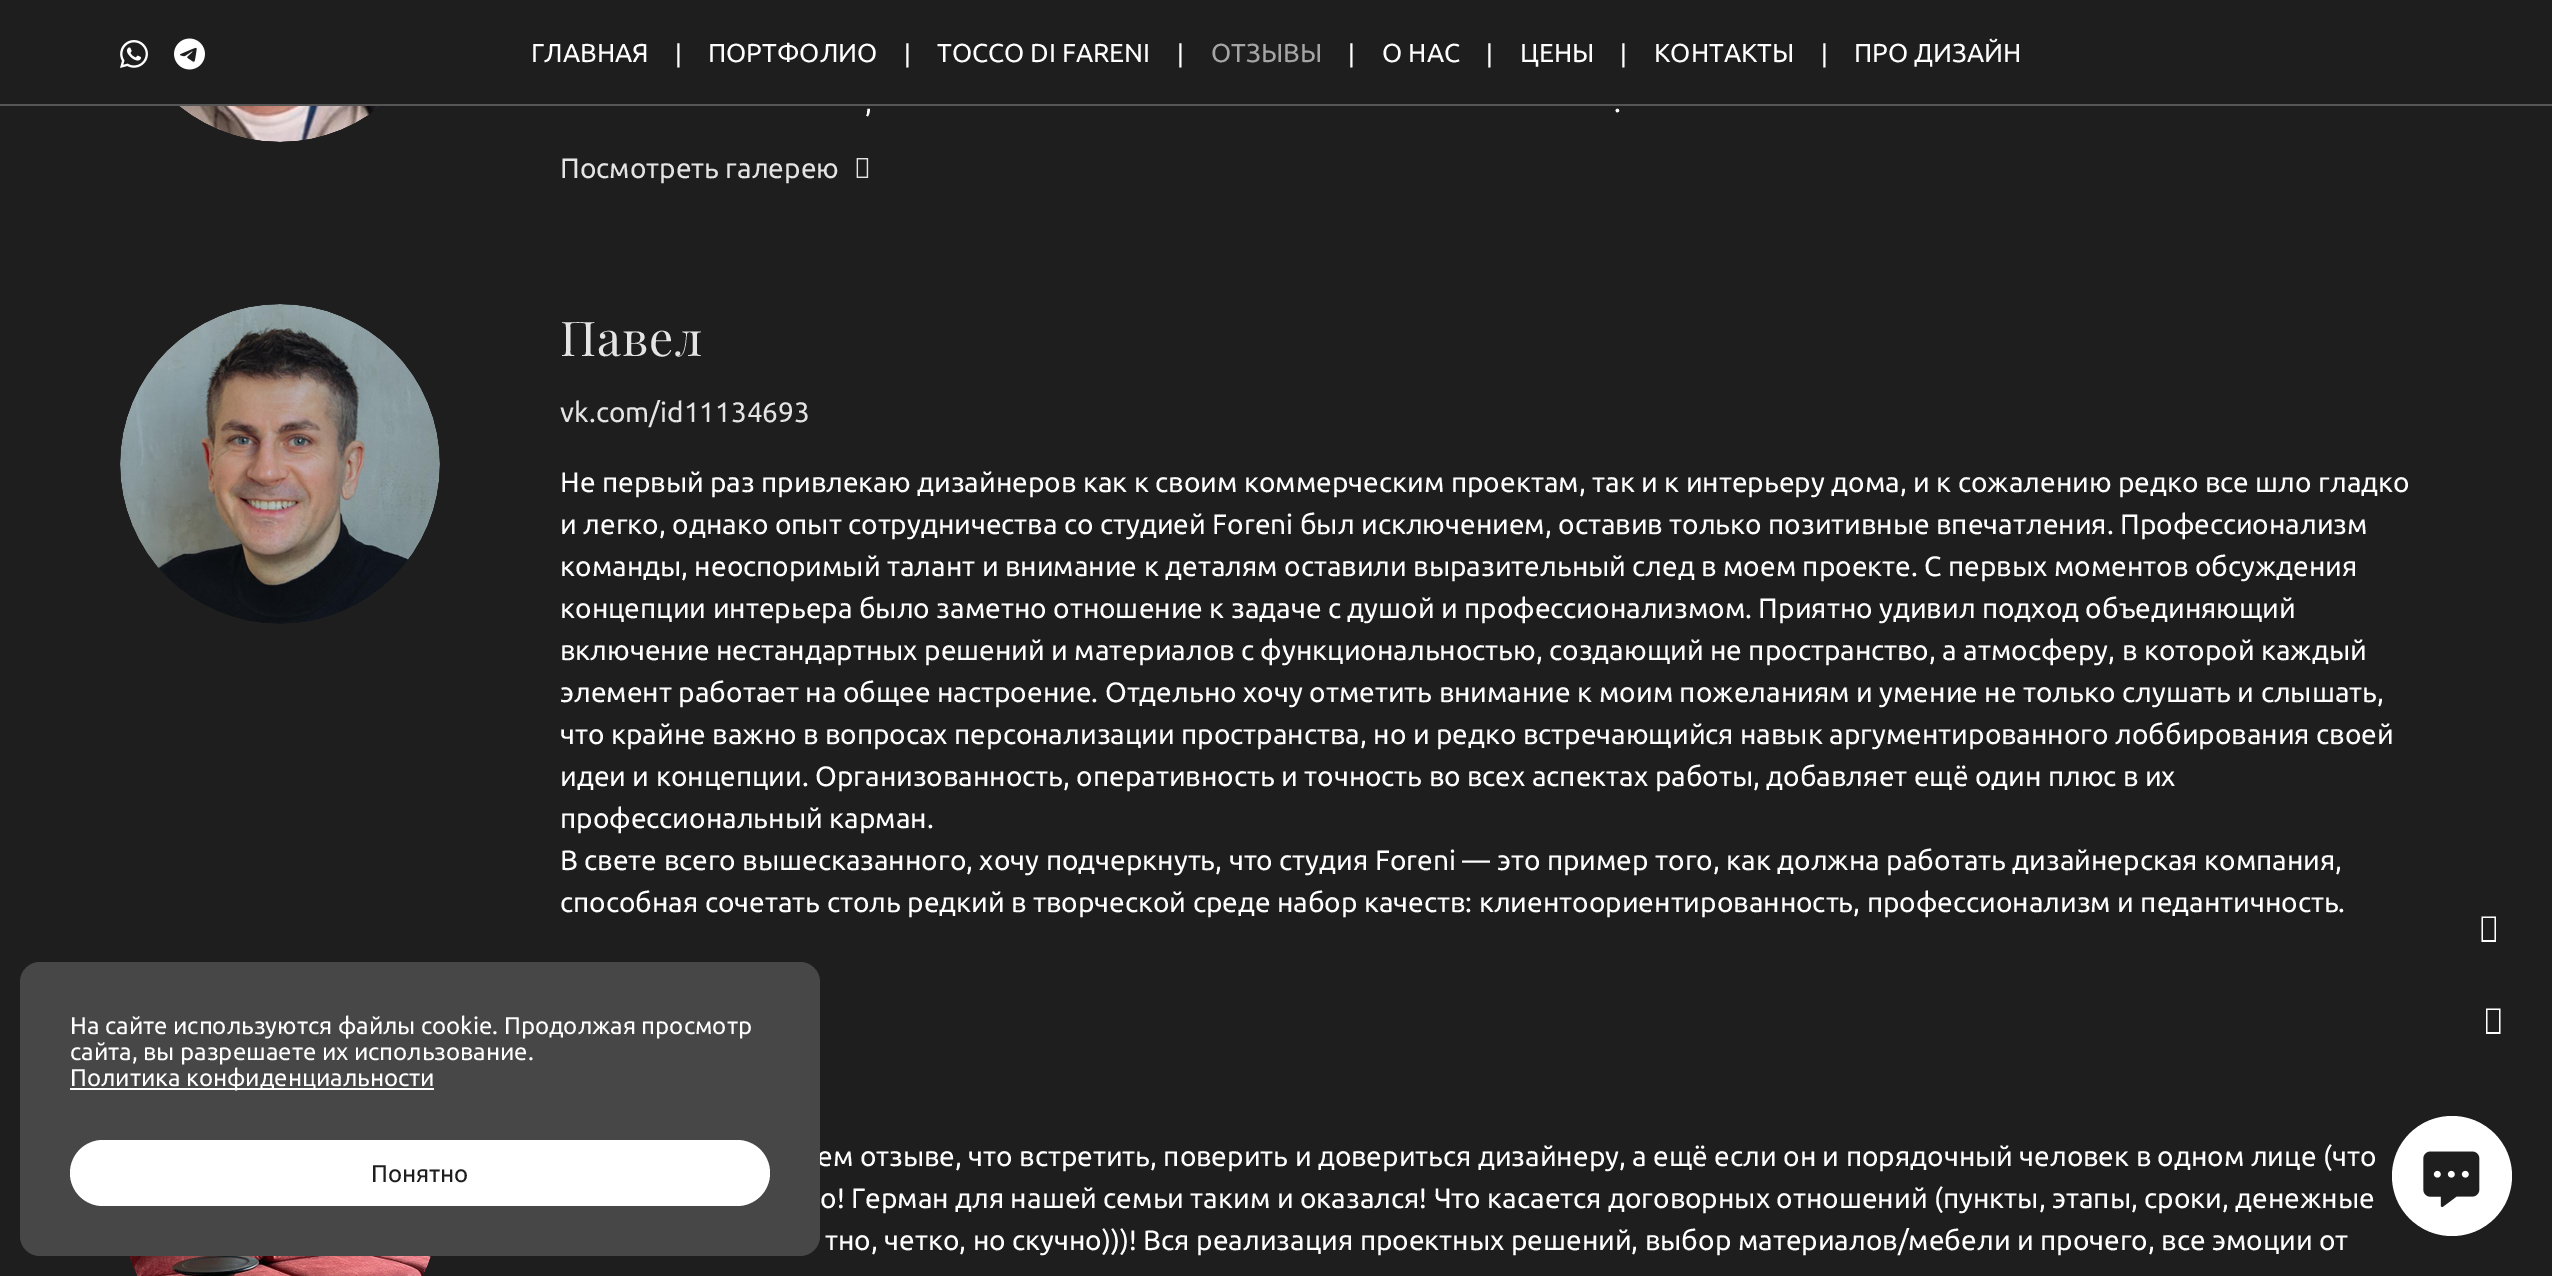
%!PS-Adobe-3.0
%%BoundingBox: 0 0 2552 1276
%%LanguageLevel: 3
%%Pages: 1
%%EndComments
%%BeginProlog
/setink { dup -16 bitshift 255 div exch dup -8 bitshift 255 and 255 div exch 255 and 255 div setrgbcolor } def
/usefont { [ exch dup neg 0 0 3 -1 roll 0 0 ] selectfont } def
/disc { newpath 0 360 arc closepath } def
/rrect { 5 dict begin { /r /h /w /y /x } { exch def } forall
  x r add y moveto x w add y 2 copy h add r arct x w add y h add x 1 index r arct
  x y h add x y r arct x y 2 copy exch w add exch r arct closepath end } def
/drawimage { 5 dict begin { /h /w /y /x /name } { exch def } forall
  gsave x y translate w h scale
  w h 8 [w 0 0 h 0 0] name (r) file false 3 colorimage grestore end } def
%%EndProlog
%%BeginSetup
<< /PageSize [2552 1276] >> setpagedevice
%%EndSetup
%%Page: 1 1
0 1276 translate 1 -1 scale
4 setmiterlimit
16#1E1E1E setink
0 0 2552 1276 rectfill
(img1.raw) 120 40 28 28 drawimage
(img2.raw) 174 38 31 32 drawimage
/Ubuntu-Regular 26 usefont
16#FFFFFF setink
531 62 moveto (ГЛАВНАЯ) show
/LiberationSans-Regular 26 usefont
675 62 moveto (|) show
/Ubuntu-Regular 26 usefont
708 62 moveto (ПОРТФОЛИО) show
/LiberationSans-Regular 26 usefont
904 62 moveto (|) show
/Ubuntu-Regular 26 usefont
937 62 moveto (TOCCO DI FARENI) show
/LiberationSans-Regular 26 usefont
1177 62 moveto (|) show
/Ubuntu-Regular 26 usefont
16#A5A5A5 setink
1211 62 moveto (ОТЗЫВЫ) show
/LiberationSans-Regular 26 usefont
16#FFFFFF setink
1348 62 moveto (|) show
/Ubuntu-Regular 26 usefont
1382 62 moveto (О НАС) show
/LiberationSans-Regular 26 usefont
1486 62 moveto (|) show
/Ubuntu-Regular 26 usefont
1520 62 moveto (ЦЕНЫ) show
/LiberationSans-Regular 26 usefont
1620 62 moveto (|) show
/Ubuntu-Regular 26 usefont
1654 62 moveto (КОНТАКТЫ) show
/LiberationSans-Regular 26 usefont
1821 62 moveto (|) show
/Ubuntu-Regular 26 usefont
1854 62 moveto (ПРО ДИЗАЙН) show
16#565656 setink
0 104 2552 2 rectfill
(img3.raw) 179 106 202 36 drawimage
/Ubuntu-Regular 28 usefont
16#FFFFFF setink
865 112 moveto (,) show
1614 112 moveto (.) show
16#E4E4E4 setink
560 178 moveto (Посмотреть галерею) show
(img4.raw) 856 158 13 20 drawimage
(img5.raw) 120 304 320 320 drawimage
/PlayfairDisplay-Regular 48 usefont
560 356 moveto 1 0 (Павел) ashow
/Ubuntu-Regular 28 usefont
560 422 moveto (vk.com/id11134693) show
16#FFFFFF setink
[
    [(Не первый раз привлекаю дизайнеров как к своим коммерческим проектам, так и к интерьеру дома, и к сожалению редко все шло гладко) 560 492]
    [(и легко, однако опыт сотрудничества со студией Foreni был исключением, оставив только позитивные впечатления. Профессионализм) 560 534]
    [(команды, неоспоримый талант и внимание к деталям оставили выразительный след в моем проекте. С первых моментов обсуждения) 560 576]
    [(концепции интерьера было заметно отношение к задаче с душой и профессионализмом. Приятно удивил подход объединяющий) 560 618]
    [(включение нестандартных решений и материалов с функциональностью, создающий не пространство, а атмосферу, в которой каждый) 560 660]
    [(элемент работает на общее настроение. Отдельно хочу отметить внимание к моим пожеланиям и умение не только слушать и слышать,) 560 702]
    [(что крайне важно в вопросах персонализации пространства, но и редко встречающийся навык аргументированного лоббирования своей) 560 744]
    [(идеи и концепции. Организованность, оперативность и точность во всех аспектах работы, добавляет ещё один плюс в их) 560 786]
    [(профессиональный карман.) 560 828]
    [(В свете всего вышесказанного, хочу подчеркнуть, что студия Foreni — это пример того, как должна работать дизайнерская компания,) 560 870]
    [(способная сочетать столь редкий в творческой среде набор качеств: клиентоориентированность, профессионализм и педантичность.) 560 912]
    [(ем отзыве, что встретить, поверить и довериться дизайнеру, а ещё если он и порядочный человек в одном лице \(что) 817 1166]
    [(о! Герман для нашей семьи таким и оказался! Что касается договорных отношений \(пункты, этапы, сроки, денежные) 820 1208]
    [(тно, четко, но скучно\)\)\)! Вся реализация проектных решений, выбор материалов/мебели и прочего, все эмоции от) 825 1250]
] { aload pop moveto show } forall
(img6.raw) 129 1256 302 20 drawimage
2481.5 942 moveto 2481.5 916.5 lineto 2496 916.5 lineto 2496 942 lineto closepath 2483 940 moveto 2494.5 940 lineto 2494.5 918 lineto 2483 918 lineto closepath fill
2486 1034 moveto 2486 1008.5 lineto 2500.5 1008.5 lineto 2500.5 1034 lineto closepath 2487.5 1032 moveto 2499 1032 lineto 2499 1010 lineto 2487.5 1010 lineto closepath fill
16#474747 setink
20 962 800 294 20 rrect fill
/Ubuntu-Regular 24 usefont
16#FFFFFF setink
70 1034 moveto (На сайте используются файлы cookie. Продолжая просмотр) show
70 1060 moveto (сайта, вы разрешаете их использование.) show
70 1088 364 2 rectfill
70 1086 moveto (Политика конфиденциальности) show
70 1140 700 66 33 rrect fill
16#1E1E1E setink
371 1182 moveto (Понятно) show
16#FFFFFF setink
2452 1176 60 disc fill
(img7.raw) 2423 1151 57 57 drawimage
showpage
%%EOF
